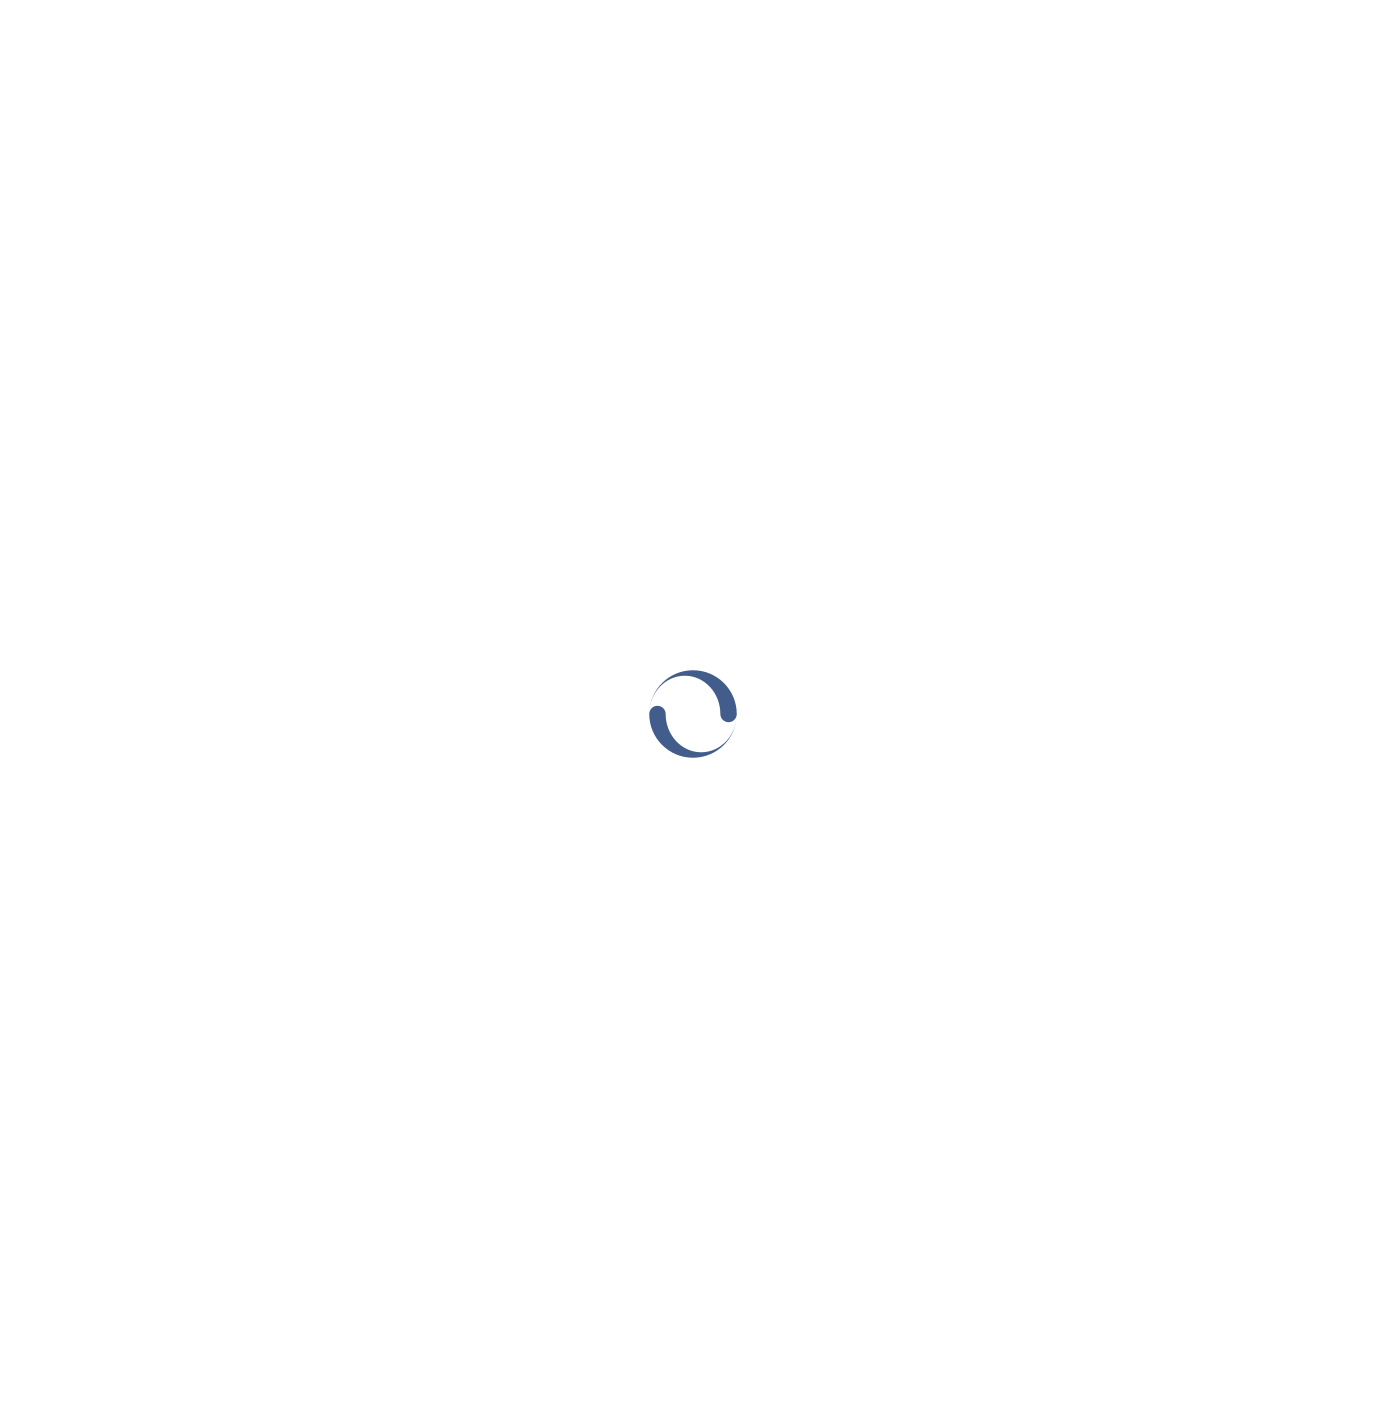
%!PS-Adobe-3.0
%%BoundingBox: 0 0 1385 1428
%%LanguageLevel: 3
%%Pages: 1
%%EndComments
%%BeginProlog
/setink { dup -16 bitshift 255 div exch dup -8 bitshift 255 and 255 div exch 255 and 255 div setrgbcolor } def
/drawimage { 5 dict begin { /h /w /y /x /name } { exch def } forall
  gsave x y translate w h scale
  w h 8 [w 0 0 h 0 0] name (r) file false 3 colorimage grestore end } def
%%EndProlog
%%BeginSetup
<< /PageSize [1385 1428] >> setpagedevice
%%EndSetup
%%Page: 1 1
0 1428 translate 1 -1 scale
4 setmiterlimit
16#FFFFFF setink
0 0 1385 1428 rectfill
(img1.raw) 649 670 88 88 drawimage
showpage
%%EOF
